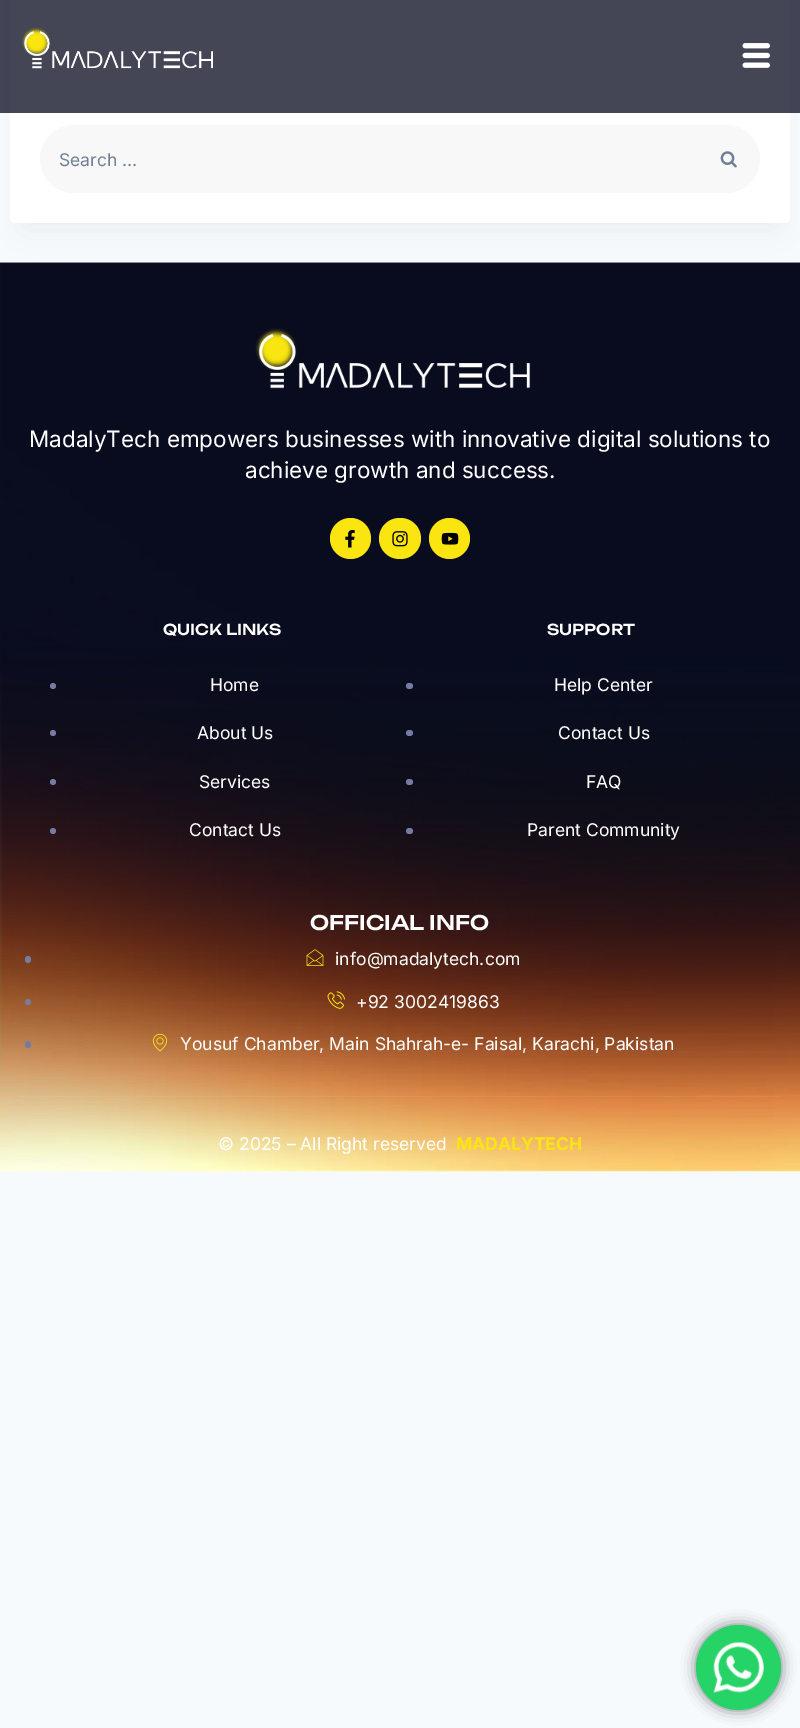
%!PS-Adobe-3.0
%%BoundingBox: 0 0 800 1728
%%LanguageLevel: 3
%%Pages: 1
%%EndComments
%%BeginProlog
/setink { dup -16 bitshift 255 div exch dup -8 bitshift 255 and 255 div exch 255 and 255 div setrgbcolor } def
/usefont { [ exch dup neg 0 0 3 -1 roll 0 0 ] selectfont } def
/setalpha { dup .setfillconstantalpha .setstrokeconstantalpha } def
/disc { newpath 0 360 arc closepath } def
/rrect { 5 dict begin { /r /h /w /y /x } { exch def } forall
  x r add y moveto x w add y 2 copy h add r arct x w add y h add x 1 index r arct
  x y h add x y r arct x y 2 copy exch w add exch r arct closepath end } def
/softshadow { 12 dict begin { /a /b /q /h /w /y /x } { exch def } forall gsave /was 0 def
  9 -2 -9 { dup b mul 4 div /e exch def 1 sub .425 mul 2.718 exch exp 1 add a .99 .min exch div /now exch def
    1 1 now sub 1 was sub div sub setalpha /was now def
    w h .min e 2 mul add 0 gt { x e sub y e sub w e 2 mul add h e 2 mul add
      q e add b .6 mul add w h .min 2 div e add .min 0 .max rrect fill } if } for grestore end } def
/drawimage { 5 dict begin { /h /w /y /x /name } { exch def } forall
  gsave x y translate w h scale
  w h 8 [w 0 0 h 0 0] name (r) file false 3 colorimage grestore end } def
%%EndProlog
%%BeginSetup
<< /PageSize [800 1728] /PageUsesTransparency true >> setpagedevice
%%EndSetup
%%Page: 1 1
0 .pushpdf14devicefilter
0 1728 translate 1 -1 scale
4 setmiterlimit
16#F7FAFC setink
0 0 800 1728 rectfill
16#000000 setink
23 -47 755 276 0 15.5 0.05 softshadow
16#FFFFFF setink
10 -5 780 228 5 rrect fill
0.76 setalpha
16#090C20 setink
0 0 800 113 rectfill
1 setalpha
(img1.raw) 22 27 191 42 drawimage
(img2.raw) 742 43 28 25 drawimage
16#F8F8F8 setink
40 125 720 68 34 rrect fill
/Inter-Regular 17.5 usefont
16#718096 setink
59 166 moveto (Search …) show
(img3.raw) 720 151 17 17 drawimage
(img4.raw) 0 262 800 910 drawimage
(img5.raw) 255 328 276 61 drawimage
/Inter-Regular 22.5 usefont
16#FFFFFF setink
29 447 moveto (MadalyTech empowers businesses with innovative digital solutions to) show
245 478 moveto (achieve growth and success.) show
16#FAE510 setink
350.5 538.5 20.5 disc fill
(img6.raw) 345 530 10 18 drawimage
379 518 42 41 20.5 rrect fill
(img7.raw) 392 531 16 16 drawimage
449.5 538.5 20.5 disc fill
(img8.raw) 441 532 18 13 drawimage
/Unbounded-Medium 15 usefont
16#FFFFFF setink
163 635 moveto (QUICK LINKS) show
16#747DA1 setink
53 686 3 disc fill
/Inter-Regular 17.5 usefont
16#FFFFFF setink
210 691 moveto (Home) show
16#747DA1 setink
53 733 3 disc fill
16#FFFFFF setink
197 739 moveto (About Us) show
16#747DA1 setink
53 782 3 disc fill
16#FFFFFF setink
199 788 moveto (Services) show
16#747DA1 setink
53 831 3 disc fill
16#FFFFFF setink
189 836 moveto (Contact Us) show
/Unbounded-Medium 15 usefont
547 635 moveto (SUPPORT) show
16#747DA1 setink
406 683 7 6 3 rrect fill
/Inter-Regular 17.5 usefont
16#FFFFFF setink
554 691 moveto (Help Center) show
16#747DA1 setink
406 730 7 6 3 rrect fill
16#FFFFFF setink
558 739 moveto (Contact Us) show
16#747DA1 setink
406 779 7 6 3 rrect fill
16#FFFFFF setink
586 788 moveto (FAQ) show
16#747DA1 setink
406 828 7 6 3 rrect fill
16#FFFFFF setink
527 836 moveto (Parent Community) show
/Unbounded-Medium 20 usefont
310 930 moveto (OFFICIAL INFO) show
16#747DA1 setink
25 956 6 7 3 rrect fill
(img9.raw) 306 949 18 17 drawimage
/Inter-Regular 17.5 usefont
16#FFFFFF setink
335 965 moveto (info@madalytech.com) show
16#747DA1 setink
28 1002 3 disc fill
(img10.raw) 327 991 18 18 drawimage
16#FFFFFF setink
356 1008 moveto (+92 3002419863) show
16#747DA1 setink
25 1041 6 7 3 rrect fill
(img11.raw) 152 1033 16 19 drawimage
16#FFFFFF setink
180 1050 moveto (Yousuf Chamber, Main Shahrah-e- Faisal, Karachi, Pakistan) show
0.06 setalpha
19 1096 762 1 rectfill
1 setalpha
218 1150 moveto (© 2025 – All Right reserved) show
/Inter-Bold 17.5 usefont
16#FAE510 setink
456 1150 moveto (MADALYTECH) show
16#000000 setink
696 1625 85 85 42.5 7 0.5 softshadow
16#25D366 setink
738.5 1667.5 42.5 disc fill
(img12.raw) 713 1642 51 51 drawimage
.poppdf14devicefilter showpage
%%EOF
